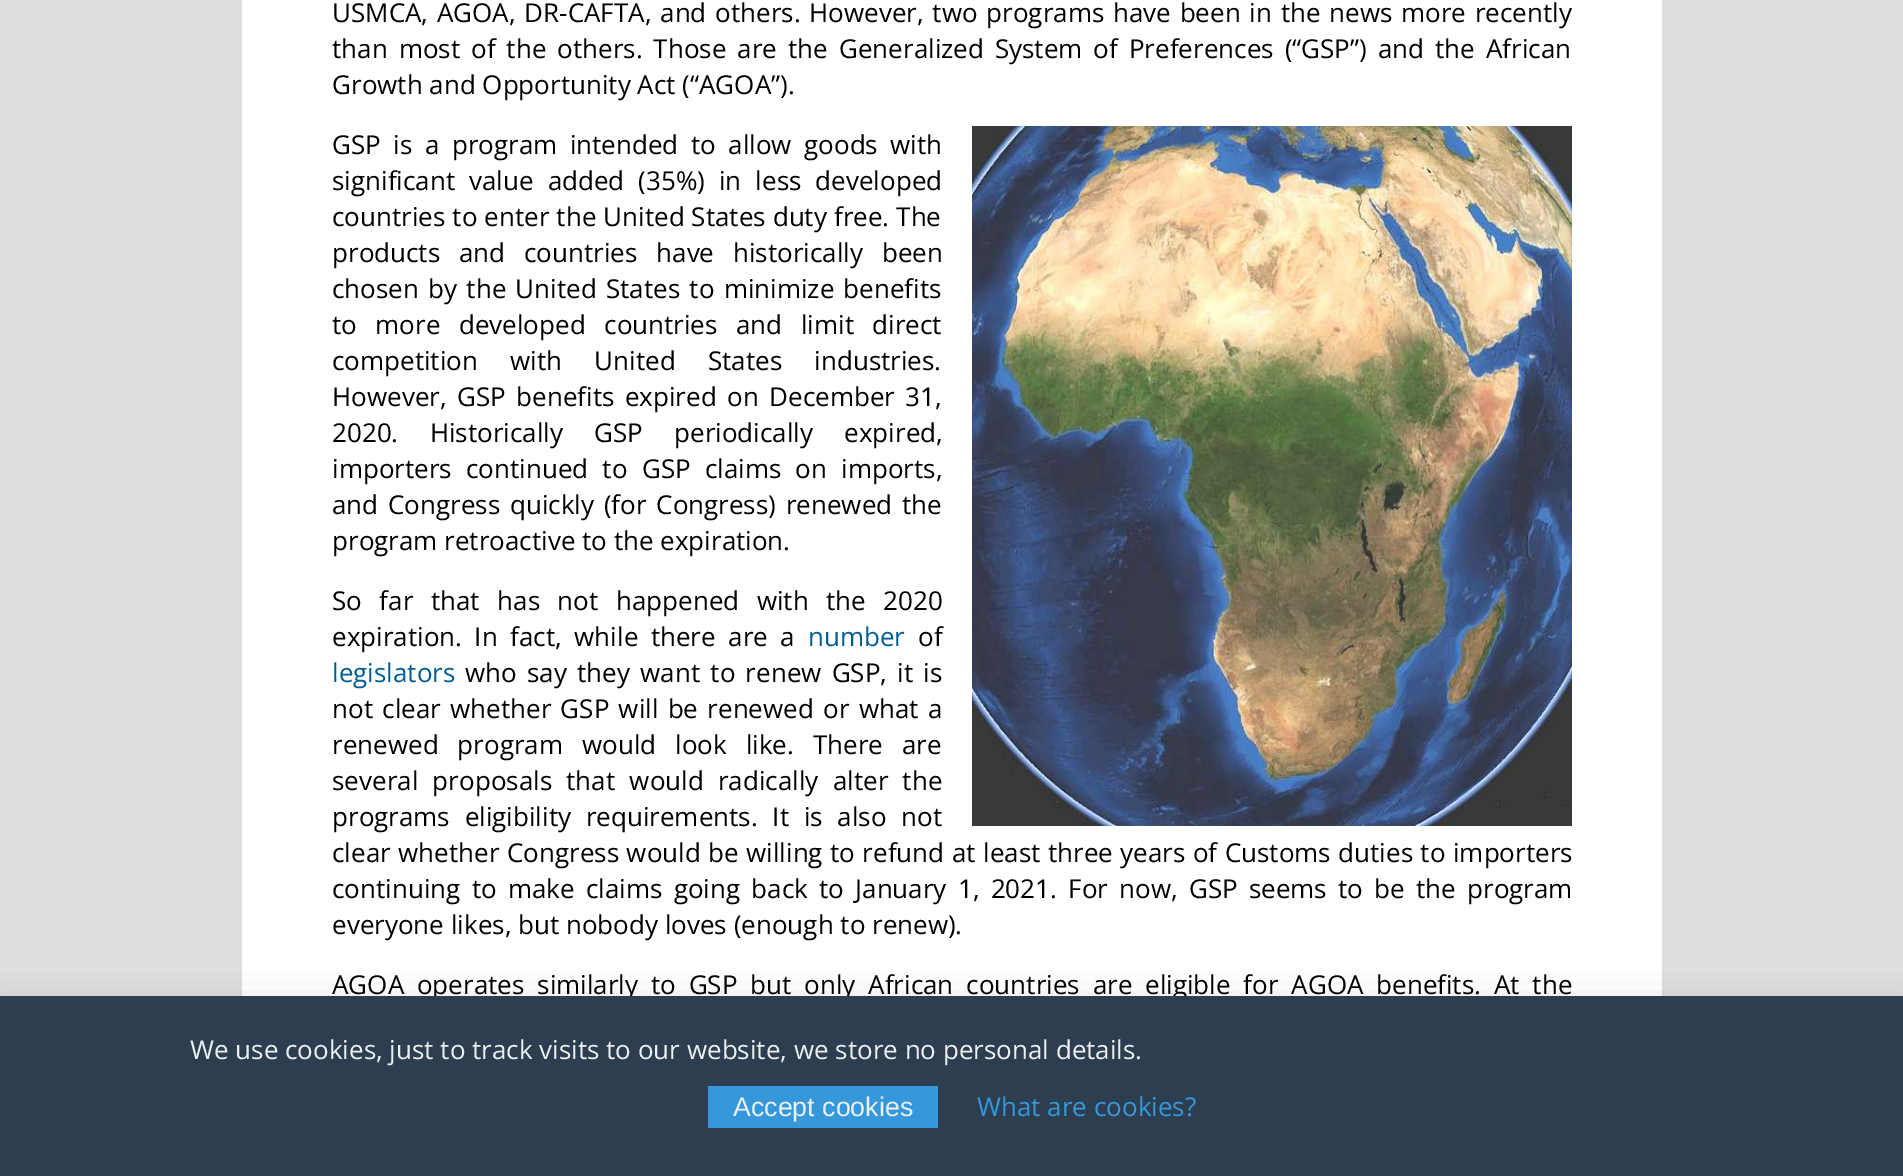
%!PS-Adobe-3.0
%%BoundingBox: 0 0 1903 1176
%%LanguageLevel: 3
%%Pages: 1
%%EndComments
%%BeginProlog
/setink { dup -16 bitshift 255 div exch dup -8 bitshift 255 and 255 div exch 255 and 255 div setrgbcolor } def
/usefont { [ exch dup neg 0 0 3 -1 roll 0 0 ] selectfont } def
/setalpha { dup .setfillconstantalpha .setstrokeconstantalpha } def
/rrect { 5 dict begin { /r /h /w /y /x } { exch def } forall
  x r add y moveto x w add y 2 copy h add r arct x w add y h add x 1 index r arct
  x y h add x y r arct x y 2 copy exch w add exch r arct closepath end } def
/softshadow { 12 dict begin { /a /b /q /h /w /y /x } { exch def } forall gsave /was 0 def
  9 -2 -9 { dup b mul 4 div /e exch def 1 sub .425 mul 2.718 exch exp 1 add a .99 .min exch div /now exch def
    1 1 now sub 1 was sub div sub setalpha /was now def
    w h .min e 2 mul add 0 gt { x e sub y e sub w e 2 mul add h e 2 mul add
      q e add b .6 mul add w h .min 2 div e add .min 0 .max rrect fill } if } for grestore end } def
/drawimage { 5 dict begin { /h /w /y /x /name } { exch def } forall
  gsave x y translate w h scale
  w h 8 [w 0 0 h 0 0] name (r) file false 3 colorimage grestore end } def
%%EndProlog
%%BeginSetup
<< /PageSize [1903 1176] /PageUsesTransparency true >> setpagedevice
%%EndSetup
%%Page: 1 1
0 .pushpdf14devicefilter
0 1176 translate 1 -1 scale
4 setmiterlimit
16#DEDEDE setink
0 0 1903 1176 rectfill
16#FFFFFF setink
242 0 1420 996 rectfill
/OpenSans-Regular 26 usefont
16#000000 setink
332 22 moveto 2 0 32 (USMCA, AGOA, DR-CAFTA, and others. However, two programs have been in the news more recently) widthshow
332 58 moveto 4.25 0 32 (than most of the others. Those are the Generalized System of Preferences \(“GSP”\) and the African) widthshow
332 94 moveto (Growth and Opportunity Act \(“AGOA”\).) show
332 154 moveto 5.75 0 32 (GSP is a program intended to allow goods with) widthshow
332 190 moveto 7.25 0 32 (significant value added \(35%\) in less developed) widthshow
332 226 moveto 0.25 0 32 (countries to enter the United States duty free. The) widthshow
332 262 moveto 12 0 32 (products and countries have historically been) widthshow
332 298 moveto 2.5 0 32 (chosen by the United States to minimize benefits) widthshow
332 334 moveto 11.75 0 32 (to more developed countries and limit direct) widthshow
332 370 moveto 25.5 0 32 (competition with United States industries.) widthshow
332 406 moveto 3.75 0 32 (However, GSP benefits expired on December 31,) widthshow
332 442 moveto 24.5 0 32 (2020. Historically GSP periodically expired,) widthshow
332 478 moveto 7.5 0 32 (importers continued to GSP claims on imports,) widthshow
332 514 moveto 3 0 32 (and Congress quickly \(for Congress\) renewed the) widthshow
332 550 moveto (program retroactive to the expiration.) show
(img1.raw) 972 126 600 700 drawimage
332 610 moveto 10.75 0 32 (So far that has not happened with the 2020) widthshow
332 646 moveto 5.75 0 32 (expiration. In fact, while there are a) widthshow
16#005C92 setink
808 646 moveto (number) show
16#000000 setink
918 646 moveto (of) show
16#005C92 setink
332 682 moveto (legislators) show
16#000000 setink
465 682 moveto 3.5 0 32 (who say they want to renew GSP, it is) widthshow
332 718 moveto 2.5 0 32 (not clear whether GSP will be renewed or what a) widthshow
332 754 moveto 12.25 0 32 (renewed program would look like. There are) widthshow
332 790 moveto 7.5 0 32 (several proposals that would radically alter the) widthshow
332 826 moveto 8 0 32 (programs eligibility requirements. It is also not) widthshow
332 862 moveto 0.75 0 32 (clear whether Congress would be willing to refund at least three years of Customs duties to importers) widthshow
332 898 moveto 4.5 0 32 (continuing to make claims going back to January 1, 2021. For now, GSP seems to be the program) widthshow
332 934 moveto (everyone likes, but nobody loves \(enough to renew\).) show
332 994 moveto 6.1 0 32 (AGOA operates similarly to GSP but only African countries are eligible for AGOA benefits. At the) widthshow
0 1016 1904 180 0 20 0.3 softshadow
16#2C3E50 setink
0 996 1903 180 rectfill
16#ECF0F1 setink
190 1059 moveto (We use cookies, just to track visits to our website, we store no personal details.) show
16#3498DB setink
708 1086 230 42 rectfill
/LiberationSans-Regular 26.75 usefont
16#ECF0F1 setink
733 1116 moveto (Accept cookies) show
/OpenSans-Regular 26 usefont
16#3498DB setink
977 1116 moveto (What are cookies?) show
.poppdf14devicefilter showpage
%%EOF
